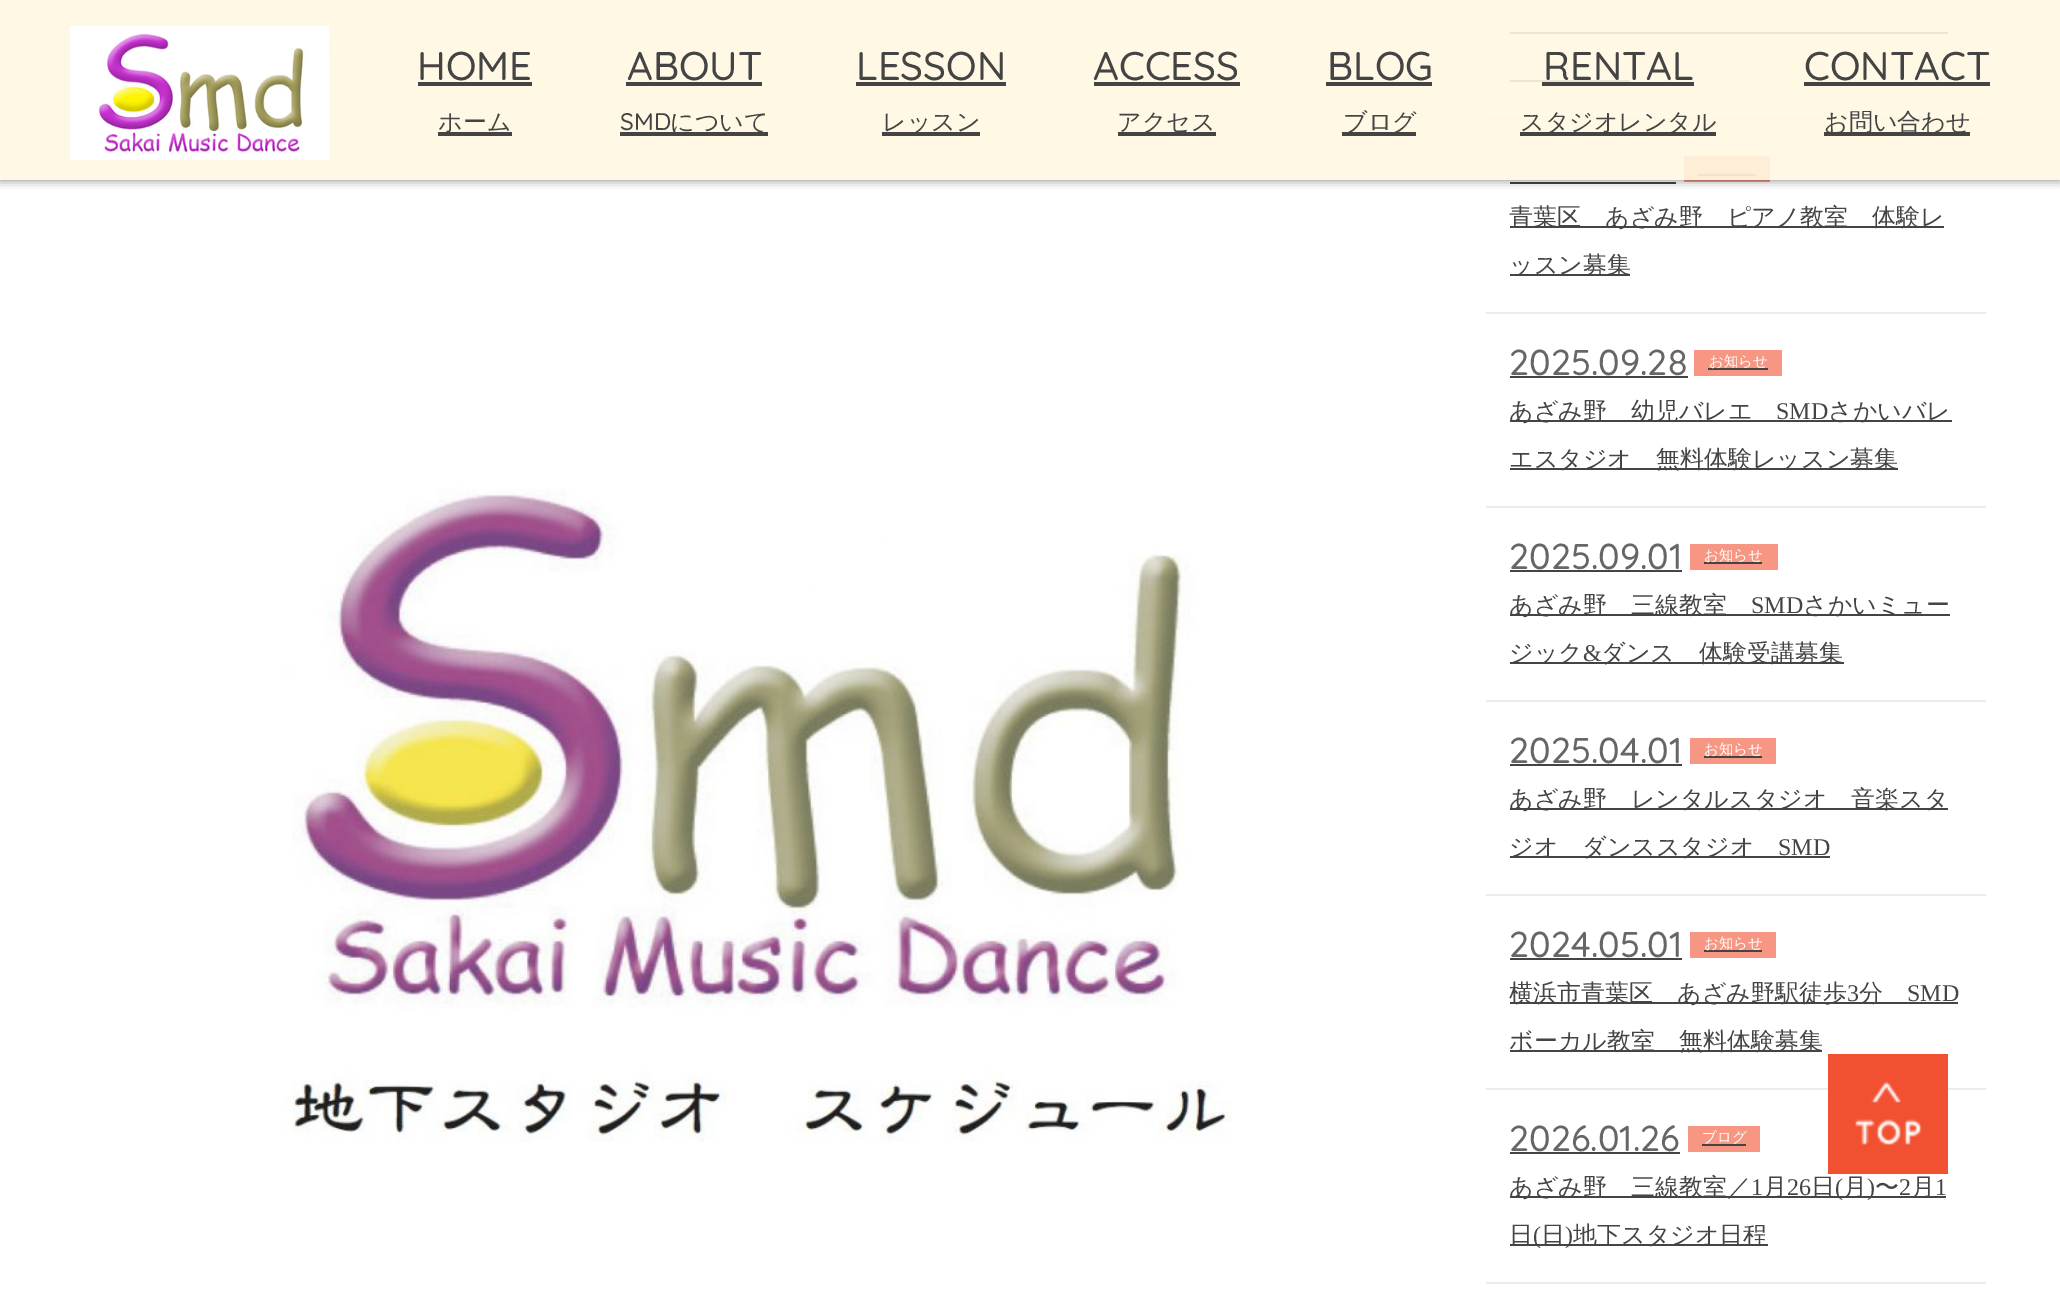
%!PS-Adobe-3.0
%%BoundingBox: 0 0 2060 1314
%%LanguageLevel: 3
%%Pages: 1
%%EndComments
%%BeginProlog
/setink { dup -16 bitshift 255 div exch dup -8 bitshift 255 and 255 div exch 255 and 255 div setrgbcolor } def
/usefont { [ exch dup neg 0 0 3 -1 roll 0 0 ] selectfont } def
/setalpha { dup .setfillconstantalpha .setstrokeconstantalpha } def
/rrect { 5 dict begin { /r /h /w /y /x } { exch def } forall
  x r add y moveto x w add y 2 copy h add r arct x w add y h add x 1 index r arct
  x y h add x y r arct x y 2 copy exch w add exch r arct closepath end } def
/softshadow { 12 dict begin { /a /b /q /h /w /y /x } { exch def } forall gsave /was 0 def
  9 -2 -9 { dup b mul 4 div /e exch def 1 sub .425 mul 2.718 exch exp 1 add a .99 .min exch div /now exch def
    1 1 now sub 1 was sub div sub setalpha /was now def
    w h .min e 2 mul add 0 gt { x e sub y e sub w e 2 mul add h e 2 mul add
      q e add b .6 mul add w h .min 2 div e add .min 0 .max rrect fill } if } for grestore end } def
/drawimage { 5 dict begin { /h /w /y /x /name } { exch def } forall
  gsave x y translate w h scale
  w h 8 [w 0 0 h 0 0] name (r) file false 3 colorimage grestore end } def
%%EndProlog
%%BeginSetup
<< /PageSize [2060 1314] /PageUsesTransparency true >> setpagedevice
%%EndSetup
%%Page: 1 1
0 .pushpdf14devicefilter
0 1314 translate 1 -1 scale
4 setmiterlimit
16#FFFFFF setink
0 0 2060 1314 rectfill
[
    [1486 118 500 2 16#EBEBEB]
    [1510 32 438 2 16#444444]
    [1510 80 120 2 16#444444]
    [1684 156 86 26 16#F79783]
    [1698 174 58 2 16#444444]
    [1510 182 166 2 16#444444]
] { aload pop setink rectfill } forall
gsave
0 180 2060 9 rectclip
16#000000 setink
0 0 2060 180 0 5 0.5 softshadow
grestore
0.9 setalpha
16#FFF7E1 setink
0 0 2060 180 rectfill
1 setalpha
(img1.raw) 70 26 260 134 drawimage
/Quicksand-Light 40 usefont
16#444444 setink
417 80 moveto (HOME) show
418 82 114 4 rectfill
438 132 74 4 rectfill
/WenQuanYiZenHei-Medium 24 usefont
438 130 moveto (ホーム) show
/Quicksand-Light 40 usefont
627 80 moveto (ABOUT) show
626 82 136 4 rectfill
/Quicksand-Light 24 usefont
620 130 moveto (SMD) show
620 132 148 4 rectfill
/WenQuanYiZenHei-Medium 24 usefont
670 130 moveto (について) show
/Quicksand-Light 40 usefont
856 80 moveto (LESSON) show
856 82 150 4 rectfill
882 132 98 4 rectfill
/WenQuanYiZenHei-Medium 24 usefont
882 130 moveto (レッスン) show
/Quicksand-Light 40 usefont
1093 80 moveto (ACCESS) show
1094 82 146 4 rectfill
1118 132 98 4 rectfill
/WenQuanYiZenHei-Medium 24 usefont
1117 130 moveto (アクセス) show
/Quicksand-Light 40 usefont
1327 80 moveto (BLOG) show
1326 82 106 4 rectfill
1342 132 74 4 rectfill
/WenQuanYiZenHei-Medium 24 usefont
1343 130 moveto (ブログ) show
/Quicksand-Light 40 usefont
1543 80 moveto (RENTAL) show
1542 82 152 4 rectfill
1520 132 196 4 rectfill
/WenQuanYiZenHei-Medium 24 usefont
1520 130 moveto (スタジオレンタル) show
/Quicksand-Light 40 usefont
1804 80 moveto (CONTACT) show
1804 82 186 4 rectfill
1824 132 146 4 rectfill
/WenQuanYiZenHei-Medium 24 usefont
1824 130 moveto (お問い合わせ) show
(img2.raw) 283 487 948 655 drawimage
16#EBEBEB setink
1486 312 500 2 rectfill
16#444444 setink
1510 226 434 2 rectfill
1509 225 moveto (青葉区　あざみ野　ピアノ教室　体験レ) show
1510 274 120 2 rectfill
1509 273 moveto (ッスン募集) show
16#EBEBEB setink
1486 506 500 2 rectfill
/Quicksand-Light 36 usefont
16#666666 setink
1509 375 moveto (2025.09.28) show
[
    [1510 376 178 2 16#444444]
    [1694 350 88 26 16#F79783]
    [1708 368 60 2 16#444444]
] { aload pop setink rectfill } forall
/WenQuanYiZenHei-Medium 14.5 usefont
16#FFFFFF setink
1709 366 moveto (お知らせ) show
16#444444 setink
1510 420 442 2 rectfill
/WenQuanYiZenHei-Medium 24 usefont
1509 419 moveto (あざみ野　幼児バレエ) show
/LiberationSerif-Regular 24 usefont
1776 419 moveto (SMD) show
/WenQuanYiZenHei-Medium 24 usefont
1828 419 moveto (さかいバレ) show
1510 468 388 2 rectfill
1509 467 moveto (エスタジオ　無料体験レッスン募集) show
16#EBEBEB setink
1486 700 500 2 rectfill
/Quicksand-Light 36 usefont
16#666666 setink
1509 569 moveto (2025.09.01) show
[
    [1510 570 172 2 16#444444]
    [1690 544 88 26 16#F79783]
    [1704 562 58 2 16#444444]
] { aload pop setink rectfill } forall
/WenQuanYiZenHei-Medium 14.5 usefont
16#FFFFFF setink
1704 560 moveto (お知らせ) show
16#444444 setink
1510 614 440 2 rectfill
/WenQuanYiZenHei-Medium 24 usefont
1509 613 moveto (あざみ野　三線教室) show
/LiberationSerif-Regular 24 usefont
1751 613 moveto (SMD) show
/WenQuanYiZenHei-Medium 24 usefont
1803 613 moveto (さかいミュー) show
1510 662 334 2 rectfill
1509 661 moveto (ジック) show
/LiberationSerif-Regular 24 usefont
1583 661 moveto (&) show
/WenQuanYiZenHei-Medium 24 usefont
1601 661 moveto (ダンス　体験受講募集) show
16#EBEBEB setink
1486 894 500 2 rectfill
/Quicksand-Light 36 usefont
16#666666 setink
1509 763 moveto (2025.04.01) show
[
    [1510 764 172 2 16#444444]
    [1690 738 86 26 16#F79783]
    [1704 756 58 2 16#444444]
] { aload pop setink rectfill } forall
/WenQuanYiZenHei-Medium 14.5 usefont
16#FFFFFF setink
1704 754 moveto (お知らせ) show
16#444444 setink
1510 808 438 2 rectfill
/WenQuanYiZenHei-Medium 24 usefont
1509 807 moveto (あざみ野　レンタルスタジオ　音楽スタ) show
1510 856 320 2 rectfill
1509 855 moveto (ジオ　ダンススタジオ) show
/LiberationSerif-Regular 24 usefont
1778 855 moveto (SMD) show
16#EBEBEB setink
1486 1088 500 2 rectfill
/Quicksand-Light 36 usefont
16#666666 setink
1509 957 moveto (2024.05.01) show
[
    [1510 958 172 2 16#444444]
    [1690 932 86 26 16#F79783]
    [1704 950 58 2 16#444444]
] { aload pop setink rectfill } forall
/WenQuanYiZenHei-Medium 14.5 usefont
16#FFFFFF setink
1704 948 moveto (お知らせ) show
16#444444 setink
1510 1002 448 2 rectfill
/WenQuanYiZenHei-Medium 24 usefont
1509 1001 moveto (横浜市青葉区　あざみ野駅徒歩) show
/LiberationSerif-Regular 24 usefont
1847 1001 moveto (3) show
/WenQuanYiZenHei-Medium 24 usefont
1859 1001 moveto (分) show
/LiberationSerif-Regular 24 usefont
1907 1001 moveto (SMD) show
1510 1050 312 2 rectfill
/WenQuanYiZenHei-Medium 24 usefont
1509 1049 moveto (ボーカル教室　無料体験募集) show
16#EBEBEB setink
1486 1282 500 2 rectfill
/Quicksand-Light 36 usefont
16#666666 setink
1509 1151 moveto (2026.01.26) show
16#444444 setink
1510 1152 170 2 rectfill
16#F79783 setink
1688 1126 72 26 rectfill
/WenQuanYiZenHei-Medium 14.5 usefont
16#FFFFFF setink
1702 1142 moveto (ブログ) show
16#444444 setink
1702 1144 44 2 rectfill
1510 1196 436 2 rectfill
/WenQuanYiZenHei-Medium 24 usefont
1509 1195 moveto (あざみ野　三線教室／) show
/LiberationSerif-Regular 24 usefont
1751 1195 moveto (1) show
/WenQuanYiZenHei-Medium 24 usefont
1763 1195 moveto (月) show
/LiberationSerif-Regular 24 usefont
1787 1195 moveto (26) show
/WenQuanYiZenHei-Medium 24 usefont
1811 1195 moveto (日) show
/LiberationSerif-Regular 24 usefont
1835 1195 moveto (\() show
/WenQuanYiZenHei-Medium 24 usefont
1843 1195 moveto (月) show
/LiberationSerif-Regular 24 usefont
1867 1195 moveto (\)) show
/WenQuanYiZenHei-Medium 24 usefont
1875 1195 moveto (〜) show
/LiberationSerif-Regular 24 usefont
1899 1195 moveto (2) show
/WenQuanYiZenHei-Medium 24 usefont
1911 1195 moveto (月) show
/LiberationSerif-Regular 24 usefont
1935 1195 moveto (1) show
1510 1244 258 2 rectfill
/WenQuanYiZenHei-Medium 24 usefont
1509 1243 moveto (日) show
/LiberationSerif-Regular 24 usefont
1533 1243 moveto (\() show
/WenQuanYiZenHei-Medium 24 usefont
1541 1243 moveto (日) show
/LiberationSerif-Regular 24 usefont
1565 1243 moveto (\)) show
/WenQuanYiZenHei-Medium 24 usefont
1573 1243 moveto (地下スタジオ日程) show
(img3.raw) 1828 1054 120 120 drawimage
.poppdf14devicefilter showpage
%%EOF
